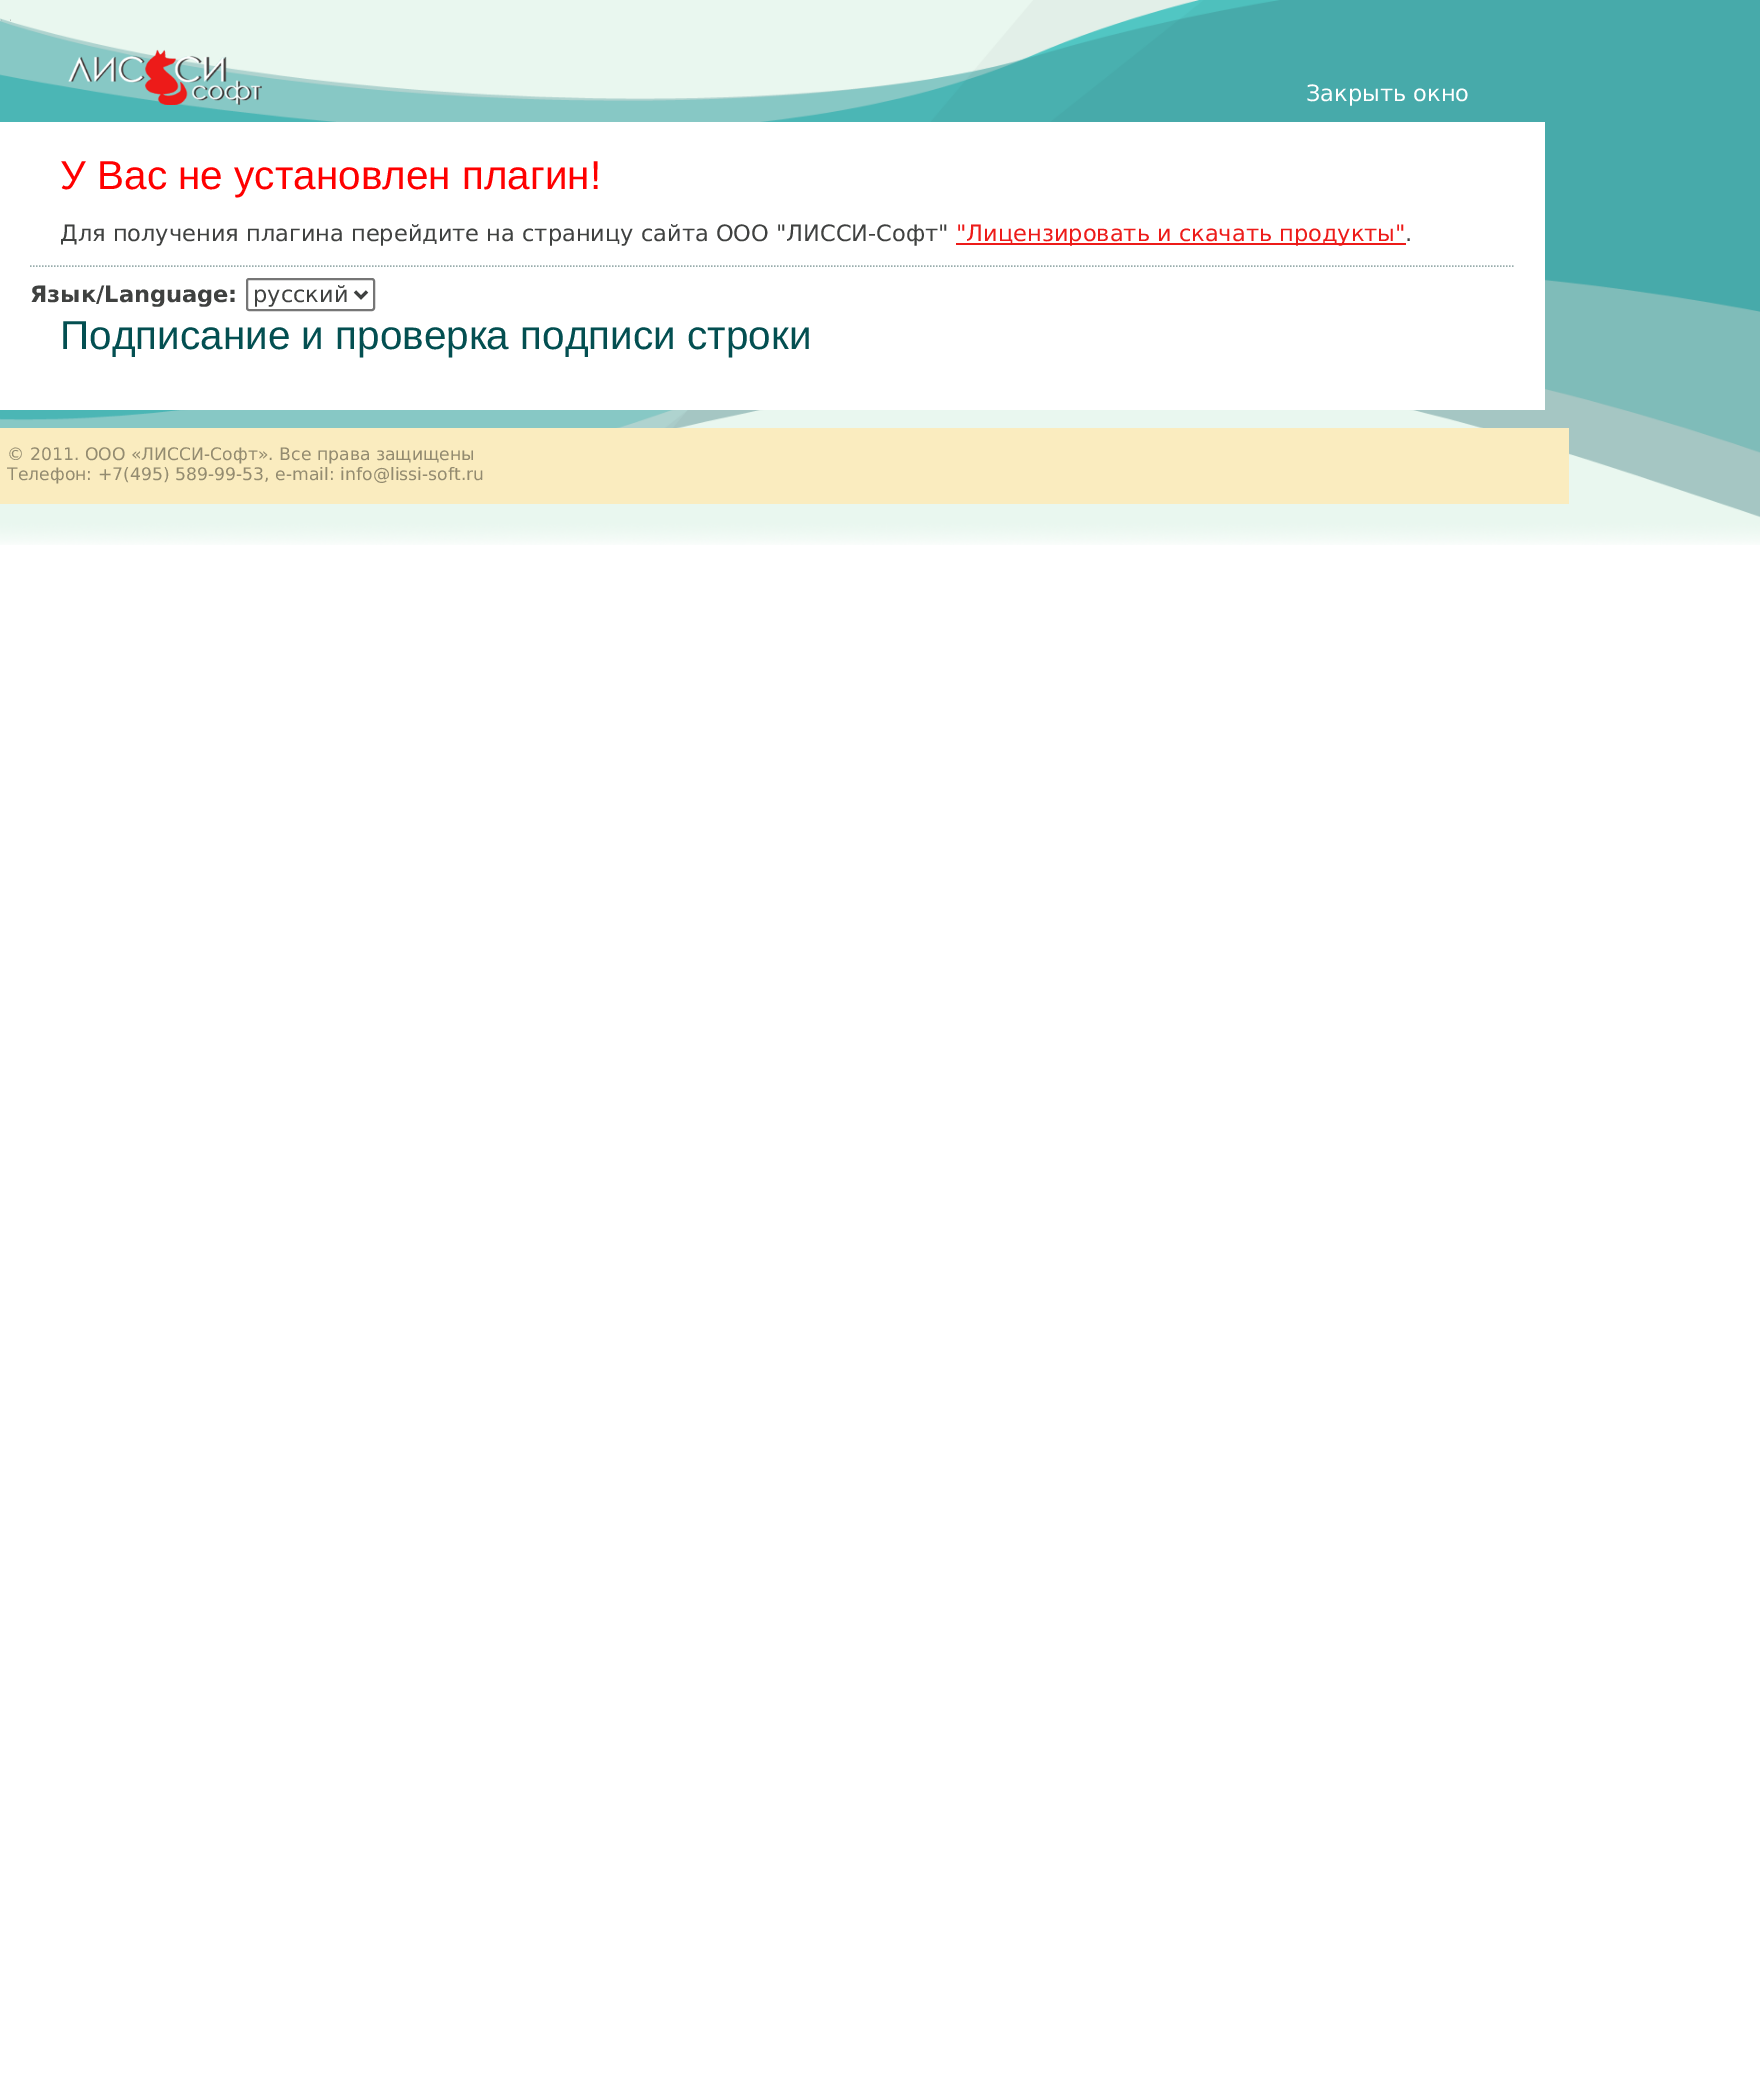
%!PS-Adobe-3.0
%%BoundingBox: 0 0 1760 2088
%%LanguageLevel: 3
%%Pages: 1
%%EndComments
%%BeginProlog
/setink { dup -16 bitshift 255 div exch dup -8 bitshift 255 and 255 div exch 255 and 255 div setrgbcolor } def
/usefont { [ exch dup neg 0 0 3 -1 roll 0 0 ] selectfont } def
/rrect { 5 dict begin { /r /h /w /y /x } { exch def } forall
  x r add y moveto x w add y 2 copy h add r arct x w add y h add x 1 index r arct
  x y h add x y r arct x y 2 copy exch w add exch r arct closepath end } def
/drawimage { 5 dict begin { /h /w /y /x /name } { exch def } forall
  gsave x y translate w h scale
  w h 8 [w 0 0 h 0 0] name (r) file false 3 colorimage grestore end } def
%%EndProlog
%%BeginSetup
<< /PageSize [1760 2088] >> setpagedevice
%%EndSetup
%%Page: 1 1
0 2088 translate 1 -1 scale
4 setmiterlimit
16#FFFFFF setink
0 0 1760 2088 rectfill
(img1.raw) 0 0 1760 545 drawimage
(img2.raw) 0 19 2 2 drawimage
(img3.raw) 9 19 2 2 drawimage
(img4.raw) 68 49 194 56 drawimage
/DejaVuSans-Regular 22.5 usefont
1306 101 moveto (Закрыть окно) show
0 122 1545 288 rectfill
/LiberationSans-Regular 40.5 usefont
16#FF0000 setink
60 189 moveto (У Вас не установлен плагин!) show
/DejaVuSans-Regular 22.5 usefont
16#3F4140 setink
60 241 moveto (Для получения плагина перейдите на страницу сайта ООО "ЛИССИ-Софт") show
16#ED1B19 setink
956 243 450 2 rectfill
956 241 moveto ("Лицензировать и скачать продукты") show
16#3F4140 setink
1405 241 moveto (.) show
16#98ACAC setink
1.5 setlinewidth
[1.5 1.5] 0 setdash
30 266 moveto 1515 266 lineto stroke
/DejaVuSans-Bold 22.5 usefont
16#3F4140 setink
30 302 moveto (Язык/Language:) show
16#767676 setink
2 setlinewidth
[] 0 setdash
247 279 127 31 2 rrect stroke
16#3F4140 setink
3 setlinewidth
355 291.5 moveto 361 297.5 lineto 367 291.5 lineto stroke
/DejaVuSans-Regular 22.5 usefont
253 302 moveto (русский) show
/LiberationSans-Regular 40.5 usefont
16#034F51 setink
60 349 moveto (Подписание и проверка подписи строки) show
16#FAECBF setink
0 428 1569 76 rectfill
/DejaVuSans-Regular 17.25 usefont
16#938B70 setink
7 460 moveto (© 2011. ООО «ЛИССИ-Софт». Все права защищены) show
7 480 moveto (Телефон: +7\(495\) 589-99-53, e-mail: info@lissi-soft.ru) show
showpage
%%EOF
